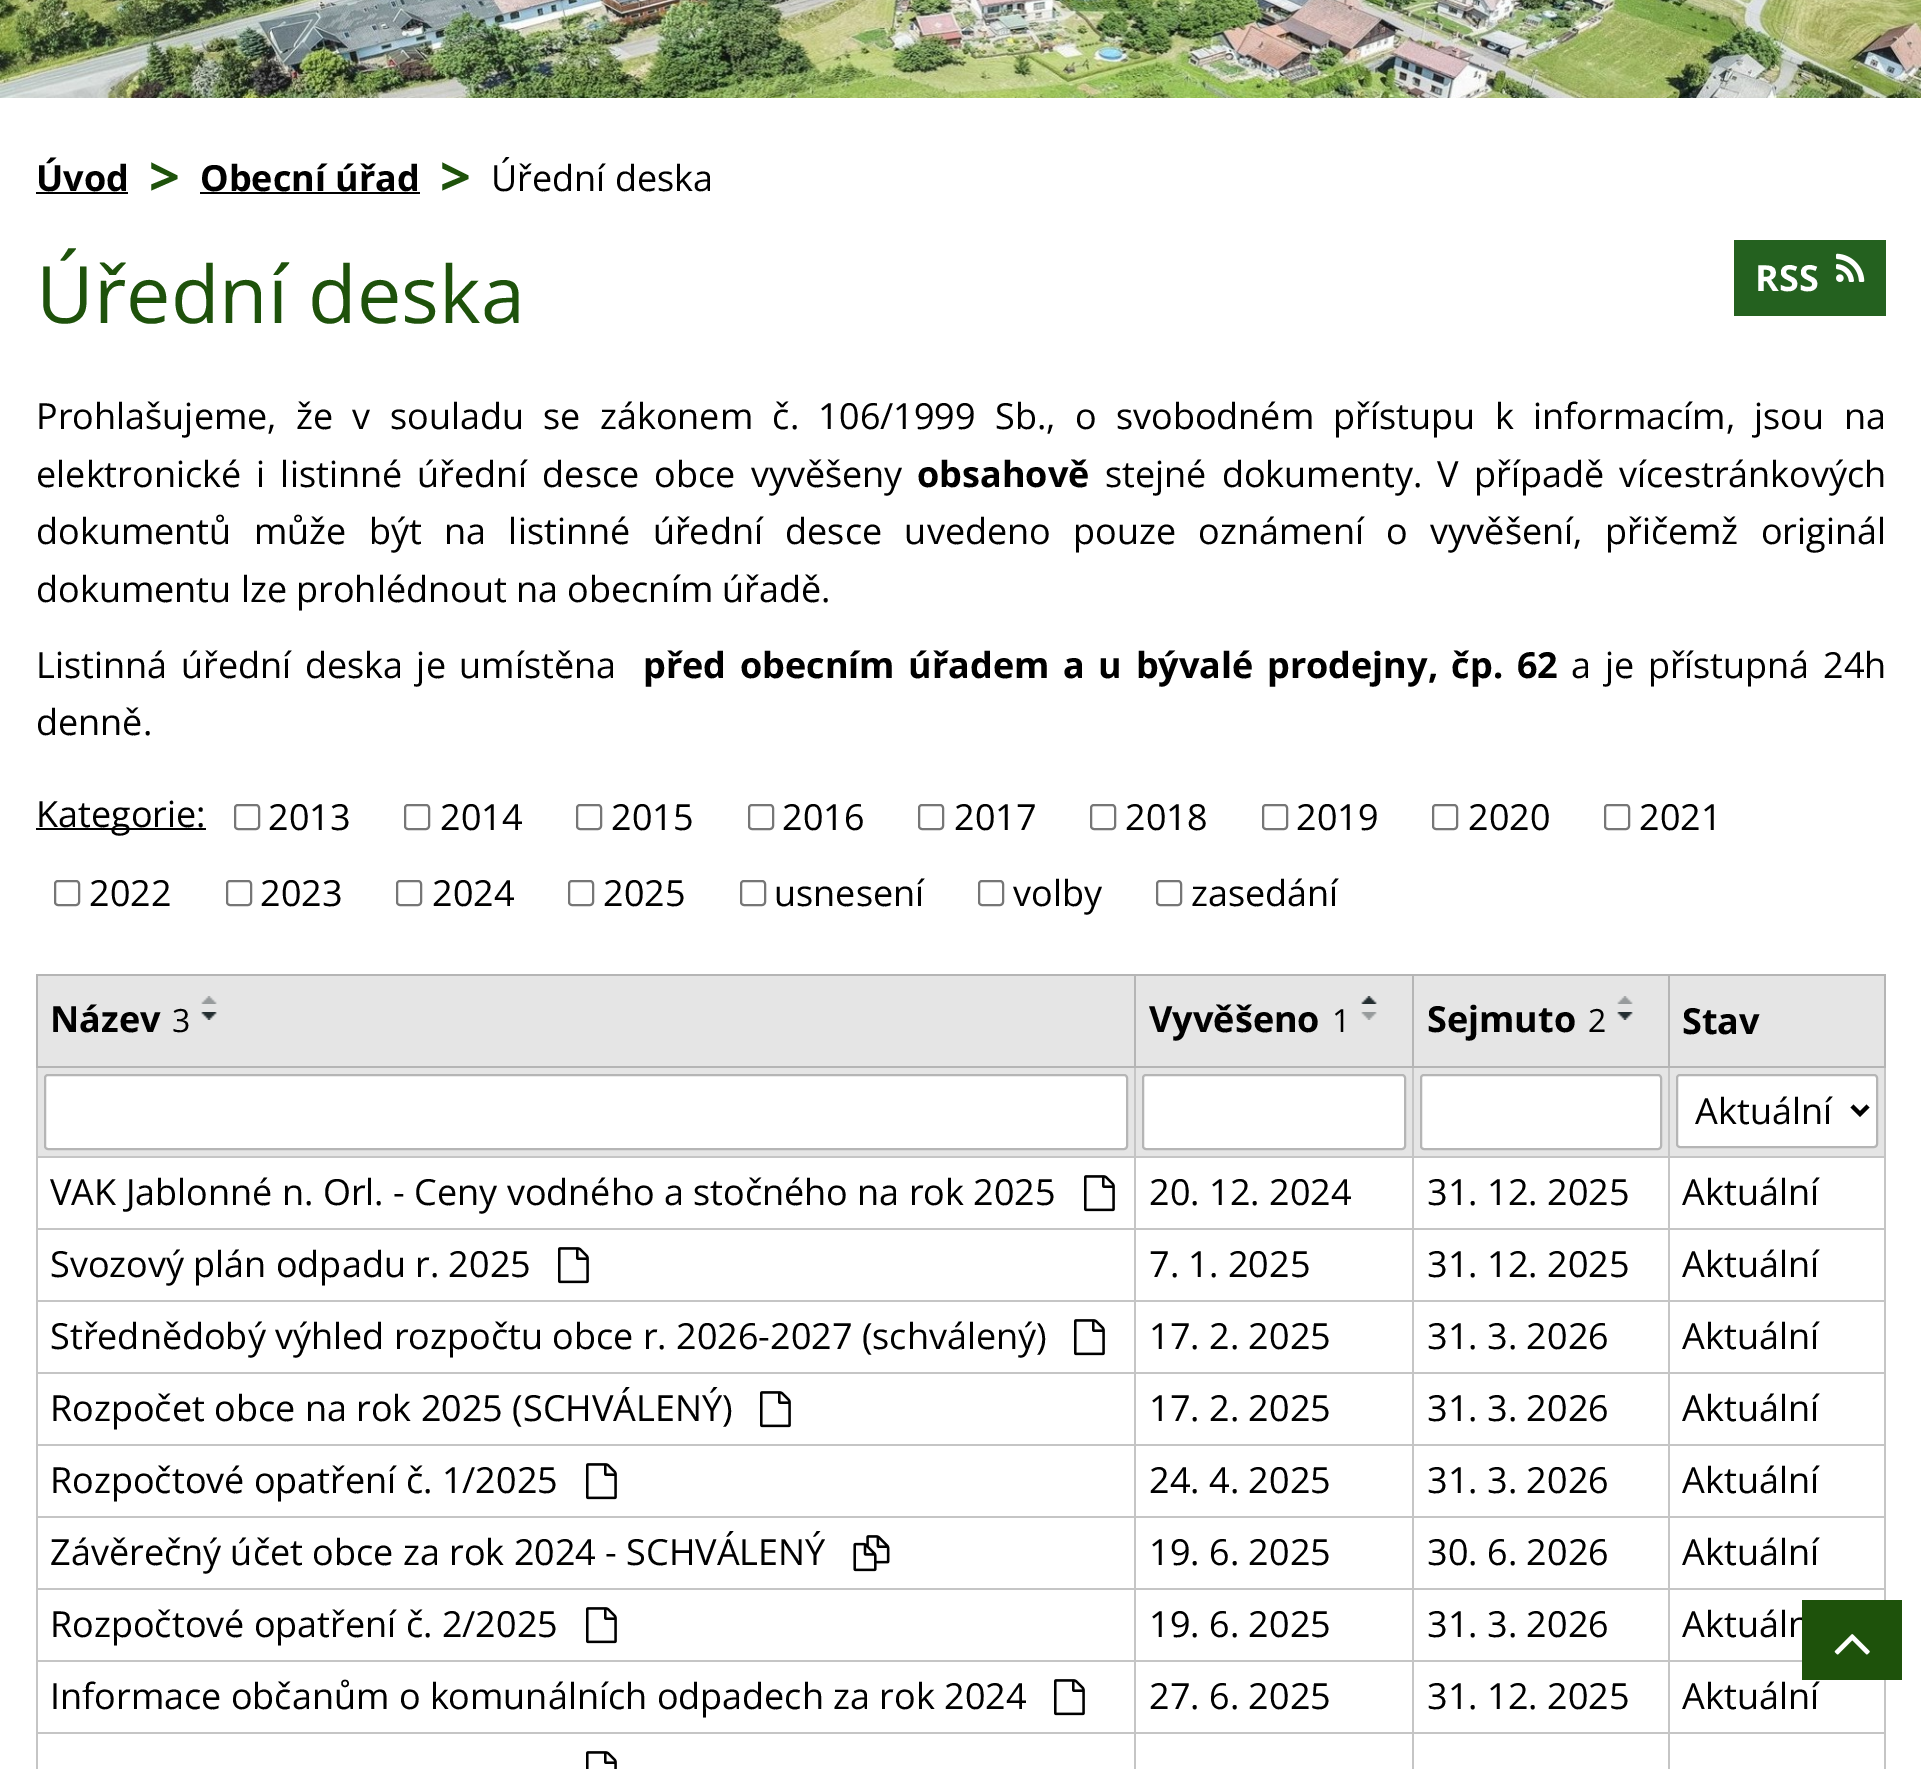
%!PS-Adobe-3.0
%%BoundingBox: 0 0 1921 1769
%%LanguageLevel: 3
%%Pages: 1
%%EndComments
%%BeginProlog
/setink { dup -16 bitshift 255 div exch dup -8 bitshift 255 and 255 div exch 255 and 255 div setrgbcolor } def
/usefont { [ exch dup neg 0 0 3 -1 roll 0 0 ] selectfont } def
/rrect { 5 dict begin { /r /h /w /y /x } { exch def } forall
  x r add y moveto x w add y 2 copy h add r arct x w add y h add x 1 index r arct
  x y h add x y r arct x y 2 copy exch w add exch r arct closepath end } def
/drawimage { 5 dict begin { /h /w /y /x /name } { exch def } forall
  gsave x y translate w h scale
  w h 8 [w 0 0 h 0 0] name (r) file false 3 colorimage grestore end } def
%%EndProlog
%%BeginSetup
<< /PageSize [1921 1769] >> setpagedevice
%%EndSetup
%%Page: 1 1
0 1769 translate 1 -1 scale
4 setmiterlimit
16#FFFFFF setink
0 0 1921 1769 rectfill
(img1.raw) 0 0 1921 98 drawimage
/OpenSans-Bold 36 usefont
16#000000 setink
36 191 moveto (Úvod) show
36 192 92 2 rectfill
/OpenSans-Bold 54 usefont
16#1E520B setink
149 196 moveto (>) show
/OpenSans-Bold 36 usefont
16#000000 setink
200 191 moveto (Obecní úřad) show
200 192 220 2 rectfill
/OpenSans-Bold 54 usefont
16#1E520B setink
440 196 moveto (>) show
/OpenSans-Regular 36 usefont
16#000000 setink
491 191 moveto (Úřední deska) show
/OpenSans-Regular 79.25 usefont
16#1E520B setink
36 323 moveto (Úřední deska) show
16#24611F setink
1734 240 152 76 rectfill
/OpenSans-Bold 36 usefont
16#FFFFFF setink
1755 291 moveto (RSS) show
(img2.raw) 1836 253 29 29 drawimage
/OpenSans-Regular 36 usefont
16#000000 setink
36 429 moveto 10 0 32 (Prohlašujeme, že v souladu se zákonem č. 106/1999 Sb., o svobodném přístupu k informacím, jsou na) widthshow
36 487 moveto 5.75 0 32 (elektronické i listinné úřední desce obce vyvěšeny) widthshow
/OpenSans-Bold 36 usefont
917 487 moveto (obsahově) show
/OpenSans-Regular 36 usefont
1105 487 moveto 5.75 0 32 (stejné dokumenty. V případě vícestránkových) widthshow
36 544 moveto 13.1 0 32 (dokumentů může být na listinné úřední desce uvedeno pouze oznámení o vyvěšení, přičemž originál) widthshow
36 602 moveto (dokumentu lze prohlédnout na obecním úřadě.) show
36 678 moveto 4.25 0 32 (Listinná úřední deska je umístěna) widthshow
/OpenSans-Bold 36 usefont
643 678 moveto 4.25 0 32 (před obecním úřadem a u bývalé prodejny, čp. 62) widthshow
/OpenSans-Regular 36 usefont
1571 678 moveto 4.25 0 32 (a je přístupná 24h) widthshow
36 735 moveto (denně.) show
36 828 170 2 rectfill
36 827 moveto (Kategorie:) show
16#767676 setink
2 setlinewidth
235 805 24 24 3 rrect stroke
16#000000 setink
268 830 moveto (2013) show
16#767676 setink
405 805 24 24 3 rrect stroke
16#000000 setink
440 830 moveto (2014) show
16#767676 setink
577 805 24 24 3 rrect stroke
16#000000 setink
611 830 moveto (2015) show
16#767676 setink
749 805 24 24 3 rrect stroke
16#000000 setink
782 830 moveto (2016) show
16#767676 setink
919 805 24 24 3 rrect stroke
16#000000 setink
954 830 moveto (2017) show
16#767676 setink
1091 805 24 24 3 rrect stroke
16#000000 setink
1125 830 moveto (2018) show
16#767676 setink
1263 805 24 24 3 rrect stroke
16#000000 setink
1296 830 moveto (2019) show
16#767676 setink
1433 805 24 24 3 rrect stroke
16#000000 setink
1468 830 moveto (2020) show
16#767676 setink
1605 805 24 24 3 rrect stroke
16#000000 setink
1639 830 moveto (2021) show
16#767676 setink
55 881 24 24 3 rrect stroke
16#000000 setink
89 906 moveto (2022) show
16#767676 setink
227 881 24 24 3 rrect stroke
16#000000 setink
260 906 moveto (2023) show
16#767676 setink
397 881 24 24 3 rrect stroke
16#000000 setink
432 906 moveto (2024) show
16#767676 setink
569 881 24 24 3 rrect stroke
16#000000 setink
603 906 moveto (2025) show
16#767676 setink
741 881 24 24 3 rrect stroke
16#000000 setink
774 906 moveto (usnesení) show
16#767676 setink
979 881 24 24 3 rrect stroke
16#000000 setink
1013 906 moveto (volby) show
16#767676 setink
1157 881 24 24 3 rrect stroke
16#000000 setink
1191 906 moveto (zasedání) show
[
    [38 976 1096 90 16#E5E5E5]
    [1668 974 218 2 16#B5B5B5]
    [1668 1156 218 2 16#C5C5C5]
    [1668 1228 218 2 16#C5C5C5]
    [1668 1300 218 2 16#C5C5C5]
    [1668 1372 218 2 16#C5C5C5]
    [1668 1444 218 2 16#C5C5C5]
    [1668 1516 218 2 16#C5C5C5]
    [1668 1588 218 2 16#C5C5C5]
    [1884 1588 2 12 16#C5C5C5]
    [1884 1516 2 74 16#C5C5C5]
    [1884 1444 2 74 16#C5C5C5]
    [1884 1372 2 74 16#C5C5C5]
    [1884 1300 2 74 16#C5C5C5]
    [1884 1228 2 74 16#C5C5C5]
    [1884 1066 2 164 16#C5C5C5]
    [1884 974 2 94 16#B5B5B5]
    [38 1068 1846 88 16#E5E5E5]
    [1668 1660 134 2 16#C5C5C5]
    [1668 1732 218 2 16#C5C5C5]
    [1668 1732 2 37 16#C5C5C5]
    [1412 1732 258 2 16#C5C5C5]
    [1668 1660 2 74 16#C5C5C5]
    [1412 1660 258 2 16#C5C5C5]
    [1668 1588 2 74 16#C5C5C5]
    [1412 1588 258 2 16#C5C5C5]
    [1668 1516 2 74 16#C5C5C5]
    [1412 1516 258 2 16#C5C5C5]
    [1668 1444 2 74 16#C5C5C5]
    [1412 1444 258 2 16#C5C5C5]
    [1668 1372 2 74 16#C5C5C5]
    [1412 1372 258 2 16#C5C5C5]
    [1668 1300 2 74 16#C5C5C5]
    [1412 1300 258 2 16#C5C5C5]
    [1668 1228 2 74 16#C5C5C5]
    [1412 1228 258 2 16#C5C5C5]
    [1668 1156 2 74 16#C5C5C5]
    [1412 1156 258 2 16#C5C5C5]
    [1668 1066 2 92 16#C5C5C5]
    [1668 1066 218 2 16#B5B5B5]
    [1668 974 2 94 16#B5B5B5]
    [1412 974 258 2 16#B5B5B5]
    [1412 1732 2 37 16#C5C5C5]
    [1134 1732 280 2 16#C5C5C5]
    [1412 1660 2 74 16#C5C5C5]
    [1134 1660 280 2 16#C5C5C5]
    [1412 1588 2 74 16#C5C5C5]
    [1134 1588 280 2 16#C5C5C5]
    [1412 1516 2 74 16#C5C5C5]
    [1134 1516 280 2 16#C5C5C5]
    [1412 1444 2 74 16#C5C5C5]
    [1134 1444 280 2 16#C5C5C5]
    [1412 1372 2 74 16#C5C5C5]
    [1134 1372 280 2 16#C5C5C5]
    [1412 1300 2 74 16#C5C5C5]
    [1134 1300 280 2 16#C5C5C5]
    [1412 1228 2 74 16#C5C5C5]
    [1134 1228 280 2 16#C5C5C5]
    [1412 1156 2 74 16#C5C5C5]
    [1134 1156 280 2 16#C5C5C5]
    [1412 1066 2 92 16#C5C5C5]
    [1412 1066 258 2 16#B5B5B5]
    [1412 974 2 94 16#B5B5B5]
    [1134 974 280 2 16#B5B5B5]
    [1134 1732 2 37 16#C5C5C5]
    [36 1732 1100 2 16#C5C5C5]
    [1134 1660 2 74 16#C5C5C5]
    [36 1660 1100 2 16#C5C5C5]
    [1134 1588 2 74 16#C5C5C5]
    [36 1588 1100 2 16#C5C5C5]
    [1134 1516 2 74 16#C5C5C5]
    [36 1516 1100 2 16#C5C5C5]
    [1134 1444 2 74 16#C5C5C5]
    [36 1444 1100 2 16#C5C5C5]
    [1134 1372 2 74 16#C5C5C5]
    [36 1372 1100 2 16#C5C5C5]
    [1134 1300 2 74 16#C5C5C5]
    [36 1300 1100 2 16#C5C5C5]
    [1134 1228 2 74 16#C5C5C5]
    [36 1228 1100 2 16#C5C5C5]
    [1134 1156 2 74 16#C5C5C5]
    [36 1156 1100 2 16#C5C5C5]
    [1134 1066 2 92 16#C5C5C5]
    [1134 1066 280 2 16#B5B5B5]
    [1134 974 2 94 16#B5B5B5]
    [36 974 1100 2 16#B5B5B5]
    [36 1732 2 37 16#C5C5C5]
    [36 1660 2 74 16#C5C5C5]
    [36 1588 2 74 16#C5C5C5]
    [36 1516 2 74 16#C5C5C5]
    [36 1444 2 74 16#C5C5C5]
    [36 1372 2 74 16#C5C5C5]
    [36 1300 2 74 16#C5C5C5]
    [36 1228 2 74 16#C5C5C5]
    [36 1066 2 164 16#C5C5C5]
    [36 1066 1100 2 16#B5B5B5]
    [36 974 2 94 16#B5B5B5]
] { aload pop setink rectfill } forall
/OpenSans-Bold 36 usefont
16#000000 setink
50 1032 moveto (Název) show
/OpenSans-Regular 32 usefont
172 1032 moveto (3) show
(img3.raw) 201 996 16 8 drawimage
(img4.raw) 201 1012 16 8 drawimage
16#E5E5E5 setink
1136 976 276 90 rectfill
/OpenSans-Bold 36 usefont
16#000000 setink
1149 1032 moveto (Vyvěšeno) show
/OpenSans-Regular 32 usefont
1332 1032 moveto (1) show
(img5.raw) 1361 996 16 8 drawimage
(img6.raw) 1361 1012 16 8 drawimage
16#E5E5E5 setink
1414 976 254 90 rectfill
/OpenSans-Bold 36 usefont
16#000000 setink
1427 1032 moveto (Sejmuto) show
/OpenSans-Regular 32 usefont
1588 1032 moveto (2) show
(img3.raw) 1617 996 16 8 drawimage
(img4.raw) 1617 1012 16 8 drawimage
16#E5E5E5 setink
1670 976 214 90 rectfill
/OpenSans-Bold 36 usefont
16#000000 setink
1682 1034 moveto (Stav) show
16#FFFFFF setink
45 1075 1082 74 3 rrect gsave fill grestore
16#B5B5B5 setink
stroke
16#FFFFFF setink
1143 1075 262 74 3 rrect gsave fill grestore
16#B5B5B5 setink
stroke
16#FFFFFF setink
1421 1075 240 74 3 rrect gsave fill grestore
16#B5B5B5 setink
stroke
16#FFFFFF setink
1677 1075 200 72 3 rrect gsave fill grestore
16#B5B5B5 setink
stroke
16#000000 setink
4 setlinewidth
1852 1106 moveto 1860 1114 lineto 1868 1106 lineto stroke
/OpenSans-Regular 36 usefont
1695 1124 moveto (Aktuální) show
50 1205 moveto (VAK Jablonné n. Orl. - Ceny vodného a stočného na rok 2025) show
(img7.raw) 1084 1175 31 37 drawimage
[
    [(20. 12. 2024) 1149 1205]
    [(31. 12. 2025) 1427 1205]
    [(Aktuální) 1682 1205]
    [(Svozový plán odpadu r. 2025) 50 1277]
] { aload pop moveto show } forall
(img7.raw) 558 1247 31 37 drawimage
[
    [(7. 1. 2025) 1149 1277]
    [(31. 12. 2025) 1427 1277]
    [(Aktuální) 1682 1277]
    [(Střednědobý výhled rozpočtu obce r. 2026-2027 \(schválený\)) 50 1349]
] { aload pop moveto show } forall
(img7.raw) 1074 1319 31 37 drawimage
[
    [(17. 2. 2025) 1149 1349]
    [(31. 3. 2026) 1427 1349]
    [(Aktuální) 1682 1349]
    [(Rozpočet obce na rok 2025 \(SCHVÁLENÝ\)) 50 1421]
] { aload pop moveto show } forall
(img7.raw) 760 1391 31 37 drawimage
[
    [(17. 2. 2025) 1149 1421]
    [(31. 3. 2026) 1427 1421]
    [(Aktuální) 1682 1421]
    [(Rozpočtové opatření č. 1/2025) 50 1493]
] { aload pop moveto show } forall
(img7.raw) 586 1463 31 37 drawimage
[
    [(24. 4. 2025) 1149 1493]
    [(31. 3. 2026) 1427 1493]
    [(Aktuální) 1682 1493]
    [(Závěrečný účet obce za rok 2024 - SCHVÁLENÝ) 50 1565]
] { aload pop moveto show } forall
(img8.raw) 853 1535 37 37 drawimage
[
    [(19. 6. 2025) 1149 1565]
    [(30. 6. 2026) 1427 1565]
    [(Aktuální) 1682 1565]
    [(Rozpočtové opatření č. 2/2025) 50 1637]
] { aload pop moveto show } forall
(img7.raw) 586 1607 31 37 drawimage
[
    [(19. 6. 2025) 1149 1637]
    [(31. 3. 2026) 1427 1637]
    [(Aktuáln) 1682 1637]
    [(Informace občanům o komunálních odpadech za rok 2024) 50 1709]
] { aload pop moveto show } forall
(img7.raw) 1054 1679 31 37 drawimage
[
    [(27. 6. 2025) 1149 1709]
    [(31. 12. 2025) 1427 1709]
    [(Aktuální) 1682 1709]
] { aload pop moveto show } forall
(img9.raw) 586 1751 31 18 drawimage
16#C5C5C5 setink
1884 1680 2 89 rectfill
16#1E520B setink
1802 1600 100 80 rectfill
(img10.raw) 1834 1634 36 21 drawimage
showpage
%%EOF
